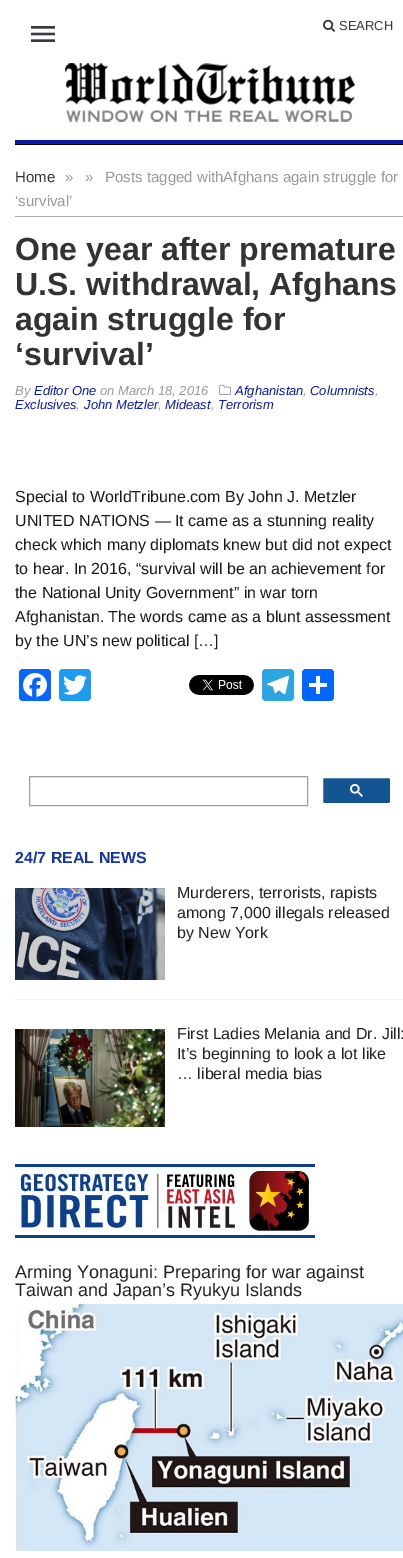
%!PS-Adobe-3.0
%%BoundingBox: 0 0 403 1558
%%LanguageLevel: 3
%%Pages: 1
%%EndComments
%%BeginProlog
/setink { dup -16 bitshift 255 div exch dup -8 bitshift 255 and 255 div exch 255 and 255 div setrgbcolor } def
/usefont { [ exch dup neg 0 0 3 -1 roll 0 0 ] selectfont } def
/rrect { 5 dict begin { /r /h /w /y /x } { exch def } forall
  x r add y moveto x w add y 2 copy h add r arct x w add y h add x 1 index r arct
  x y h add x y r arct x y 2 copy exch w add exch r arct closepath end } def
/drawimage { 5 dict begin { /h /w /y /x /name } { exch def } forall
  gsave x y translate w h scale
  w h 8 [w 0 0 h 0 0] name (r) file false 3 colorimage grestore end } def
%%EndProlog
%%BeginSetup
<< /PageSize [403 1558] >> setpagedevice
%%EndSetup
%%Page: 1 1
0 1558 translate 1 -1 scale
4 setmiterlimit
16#FFFFFF setink
0 0 403 1558 rectfill
(img1.raw) 31 26 24 16 drawimage
(img2.raw) 323 19 12 13 drawimage
/LiberationSans-Regular 13 usefont
16#373940 setink
339 30 moveto (SEARCH) show
(img3.raw) 65 63 290 59 drawimage
[
    [15 140 388 4 16#0919AA]
    [15 144 388 1 16#000000]
    [15 216 388 1 16#ADADAD]
] { aload pop setink rectfill } forall
/LiberationSans-Regular 15 usefont
16#333333 setink
15 182 moveto (Home) show
16#999999 setink
[
    [(») 65 182]
    [(») 85 182]
    [(Posts tagged withAfghans again struggle for) 105 182]
    [(‘survival’) 15 206]
] { aload pop moveto show } forall
/LiberationSans-Bold 32 usefont
16#333333 setink
[
    [(One year after premature) 15 260]
    [(U.S. withdrawal, Afghans) 15 295]
    [(again struggle for) 15 330]
    [(‘survival’) 15 365]
] { aload pop moveto show } forall
(img4.raw) 219 384 13 11 drawimage
/LiberationSans-Italic 13 usefont
16#0919AA setink
235 395 moveto (Afghanistan) show
16#999999 setink
303 395 moveto (,) show
16#0919AA setink
310 395 moveto (Columnists) show
16#999999 setink
375 395 moveto (,) show
16#0919AA setink
15 409 moveto (Exclusives) show
16#999999 setink
76 409 moveto (,) show
16#0919AA setink
84 409 moveto (John Metzler) show
16#999999 setink
158 409 moveto (,) show
16#0919AA setink
165 409 moveto (Mideast) show
218 409 moveto (Terrorism) show
16#999999 setink
211 409 moveto (,) show
15 395 moveto (By) show
16#0919AA setink
34 395 moveto (Editor One) show
16#999999 setink
100 395 moveto (on March 18, 2016) show
/LiberationSans-Regular 16 usefont
16#191919 setink
[
    [(Special to WorldTribune.com By John J. Metzler) 15 502]
    [(UNITED NATIONS — It came as a stunning reality) 15 526]
    [(check which many diplomats knew but did not expect) 15 550]
    [(to hear. In 2016, “survival will be an achievement for) 15 574]
    [(the National Unity Government” in war torn) 15 598]
    [(Afghanistan. The words came as a blunt assessment) 15 622]
    [(by the UN’s new political […]) 15 646]
] { aload pop moveto show } forall
16#0866FF setink
19 669 32 32 4 rrect fill
(img5.raw) 23 673 24 24 drawimage
16#1D9BF0 setink
59 669 32 32 4 rrect fill
(img6.raw) 63 675 24 20 drawimage
(img7.raw) 189 675 65 20 drawimage
16#2CA5E0 setink
262 669 32 32 4 rrect fill
(img8.raw) 267 675 22 20 drawimage
16#0166FF setink
302 669 32 32 4 rrect fill
16#FFFFFF setink
316 676 4 18 rectfill
309 683 18 4 rectfill
16#9E9E9E setink
29.5 776.5 278 29 rectstroke
16#125592 setink
322.5 777.5 68 26 1.5 rrect gsave fill grestore
16#FFFFFF setink
stroke
(img9.raw) 350 784 13 13 drawimage
/LiberationSans-Bold 16 usefont
16#1634A6 setink
15 863 moveto (24/7 REAL NEWS) show
16#EFEFEF setink
15 999 388 1 rectfill
(img10.raw) 15 888 150 92 drawimage
/LiberationSans-Regular 16 usefont
16#222222 setink
[
    [(Murderers, terrorists, rapists) 177 898]
    [(among 7,000 illegals released) 177 918]
    [(by New York) 177 938]
] { aload pop moveto show } forall
(img11.raw) 15 1029 150 98 drawimage
[
    [(First Ladies Melania and Dr. Jill:) 177 1039]
    [(It’s beginning to look a lot like) 177 1059]
    [(… liberal media bias) 177 1079]
] { aload pop moveto show } forall
(img12.raw) 15 1164 300 74 drawimage
/LiberationSans-Regular 18 usefont
15 1278 moveto (Arming Yonaguni: Preparing for war against) show
15 1296 moveto (Taiwan and Japan’s Ryukyu Islands) show
(img13.raw) 15 1304 388 247 drawimage
showpage
%%EOF
